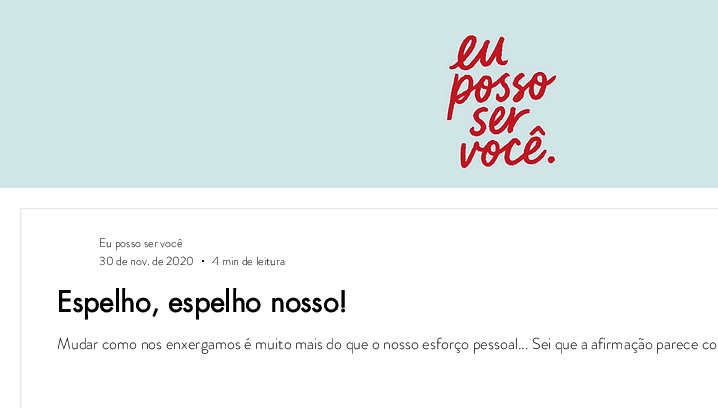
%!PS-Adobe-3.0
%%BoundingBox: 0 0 718 408
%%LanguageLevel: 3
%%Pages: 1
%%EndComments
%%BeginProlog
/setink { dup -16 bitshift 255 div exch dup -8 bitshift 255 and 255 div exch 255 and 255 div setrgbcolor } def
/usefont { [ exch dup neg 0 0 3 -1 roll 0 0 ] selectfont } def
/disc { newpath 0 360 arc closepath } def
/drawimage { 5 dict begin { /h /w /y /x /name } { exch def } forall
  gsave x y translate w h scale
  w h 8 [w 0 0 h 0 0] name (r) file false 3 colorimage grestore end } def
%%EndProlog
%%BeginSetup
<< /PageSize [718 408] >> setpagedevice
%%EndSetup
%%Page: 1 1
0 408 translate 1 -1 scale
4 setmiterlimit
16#FFFFFF setink
0 0 718 408 rectfill
16#D1E6E7 setink
0 0 718 188 rectfill
(img1.raw) 444 33 115 137 drawimage
16#E8E6E6 setink
20.5 208.5 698 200 rectstroke
/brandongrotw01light-Light 12 usefont
16#000000 setink
99 247 moveto (Eu posso ser você) show
99 265 moveto (30 de nov. de 2020) show
203 261 1 disc fill
212 265 moveto (4 min de leitura) show
/futura-Bold 28 usefont
57 312 moveto (Espelho, espelho nosso!) show
/brandongrotw01light-Light 16 usefont
57 349 moveto (Mudar como nos enxergamos é muito mais do que o nosso esforço pessoal... Sei que a afirmação parece co) show
showpage
%%EOF
